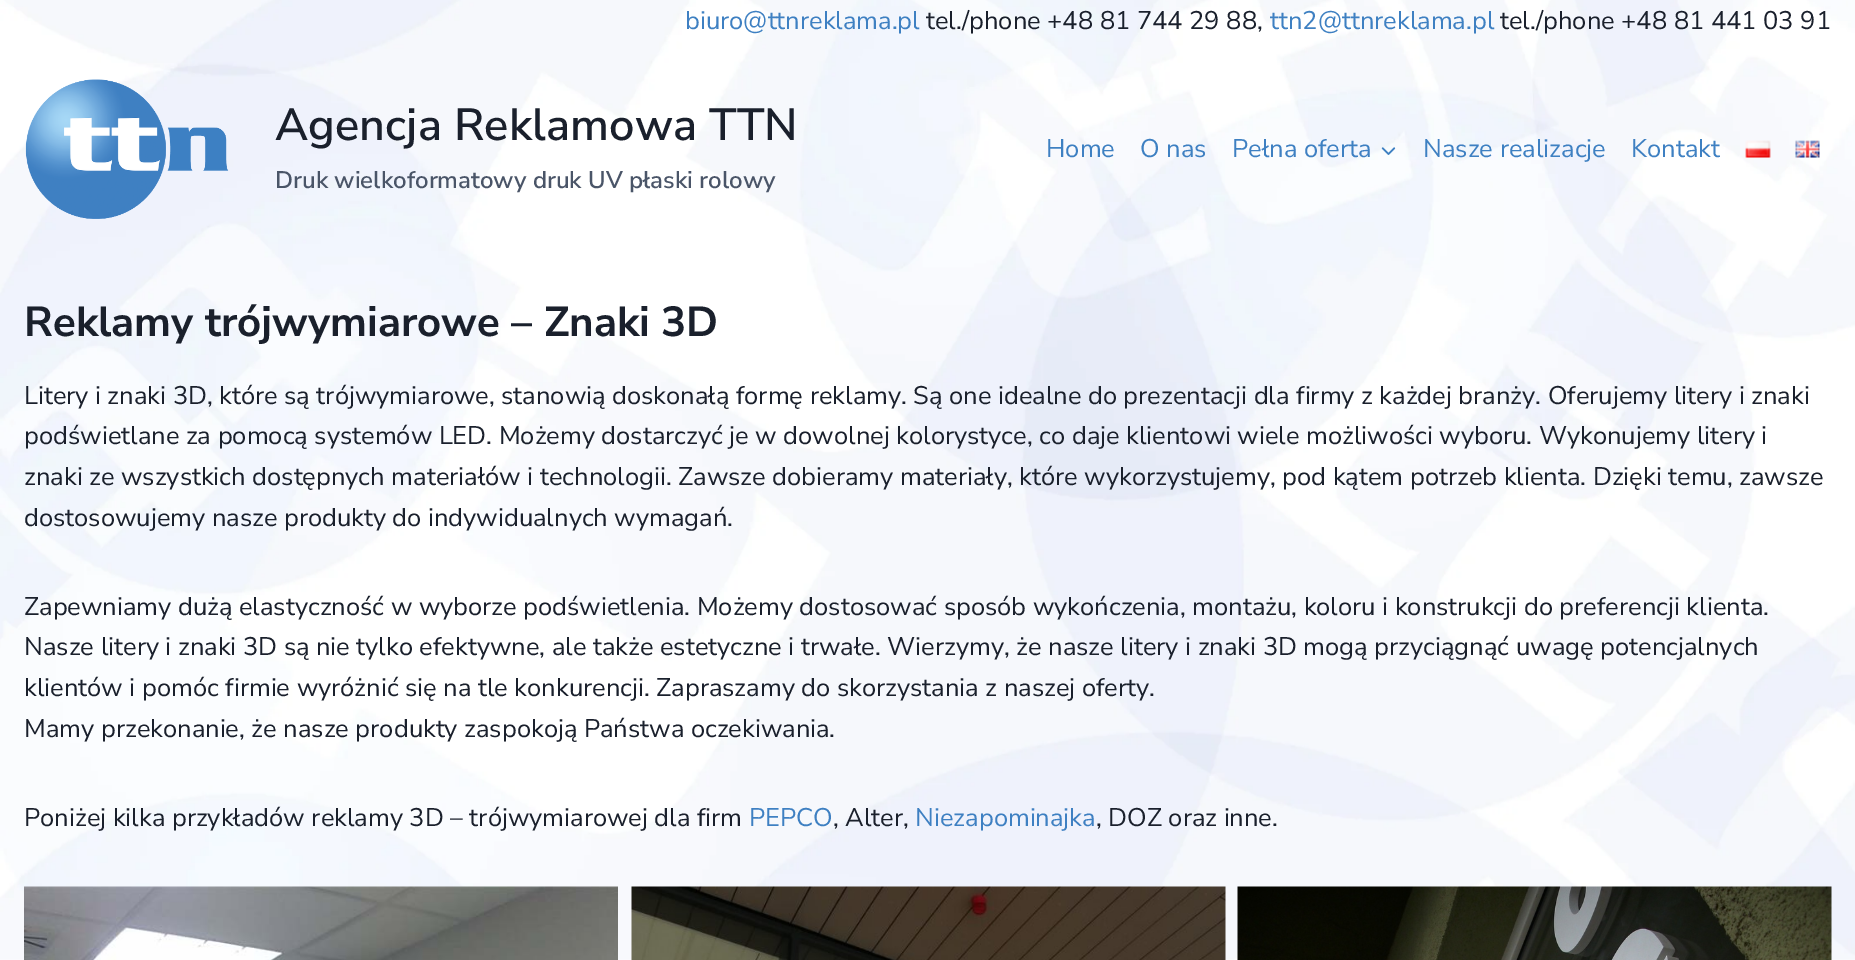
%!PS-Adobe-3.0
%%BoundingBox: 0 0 1855 960
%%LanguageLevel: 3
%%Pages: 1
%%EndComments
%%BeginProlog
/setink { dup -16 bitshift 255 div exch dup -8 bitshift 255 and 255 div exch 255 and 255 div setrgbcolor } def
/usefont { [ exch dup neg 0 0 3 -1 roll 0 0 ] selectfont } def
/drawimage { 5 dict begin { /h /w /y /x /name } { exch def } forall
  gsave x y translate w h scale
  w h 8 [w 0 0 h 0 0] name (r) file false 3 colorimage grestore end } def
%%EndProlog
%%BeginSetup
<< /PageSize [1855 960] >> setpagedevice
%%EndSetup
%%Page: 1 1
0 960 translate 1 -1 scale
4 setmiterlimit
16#FFFFFF setink
0 0 1855 960 rectfill
(img1.raw) 0 0 1855 960 drawimage
/NunitoSans-Regular 25.5 usefont
16#3E80C2 setink
685 29 moveto (biuro@ttnreklama.pl) show
16#1A202C setink
926 29 moveto (tel./phone +48 81 744 29 88,) show
16#3E80C2 setink
1270 29 moveto (ttn2@ttnreklama.pl) show
16#1A202C setink
1500 29 moveto (tel./phone +48 81 441 03 91) show
(img2.raw) 25 79 204 140 drawimage
/NunitoSans-SemiBold 45 usefont
275 140 moveto 0.1 0 (Agencja Reklamowa TTN) ashow
/NunitoSans-SemiBold 24 usefont
16#4A5568 setink
275 188 moveto (Druk wielkoformatowy druk UV płaski rolowy) show
/NunitoSans-Regular 25.5 usefont
16#3E80C2 setink
[
    [(Home) 1046 157]
    [(O nas) 1140 157]
    [(Pełna oferta) 1232 157]
] { aload pop moveto show } forall
(img3.raw) 1381 147 15 8 drawimage
1423 157 moveto (Nasze realizacje) show
1631 157 moveto (Kontakt) show
(img4.raw) 1745 140 26 18 drawimage
(img5.raw) 1795 140 25 18 drawimage
/NunitoSans-Bold 42 usefont
16#1A202C setink
24 336 moveto (Reklamy trójwymiarowe – Znaki 3D) show
/NunitoSans-Regular 25.5 usefont
[
    [(Litery i znaki 3D, które są trójwymiarowe, stanowią doskonałą formę reklamy. Są one idealne do prezentacji dla firmy z każdej branży. Oferujemy litery i znaki) 24 404]
    [(podświetlane za pomocą systemów LED. Możemy dostarczyć je w dowolnej kolorystyce, co daje klientowi wiele możliwości wyboru. Wykonujemy litery i) 24 444]
    [(znaki ze wszystkich dostępnych materiałów i technologii. Zawsze dobieramy materiały, które wykorzystujemy, pod kątem potrzeb klienta. Dzięki temu, zawsze) 24 485]
    [(dostosowujemy nasze produkty do indywidualnych wymagań.) 24 526]
    [(Zapewniamy dużą elastyczność w wyborze podświetlenia. Możemy dostosować sposób wykończenia, montażu, koloru i konstrukcji do preferencji klienta.) 24 615]
    [(Nasze litery i znaki 3D są nie tylko efektywne, ale także estetyczne i trwałe. Wierzymy, że nasze litery i znaki 3D mogą przyciągnąć uwagę potencjalnych) 24 655]
    [(klientów i pomóc firmie wyróżnić się na tle konkurencji. Zapraszamy do skorzystania z naszej oferty.) 24 696]
    [(Mamy przekonanie, że nasze produkty zaspokoją Państwa oczekiwania.) 24 737]
    [(Poniżej kilka przykładów reklamy 3D – trójwymiarowej dla firm) 24 826]
] { aload pop moveto show } forall
16#3E80C2 setink
749 826 moveto (PEPCO) show
16#1A202C setink
833 826 moveto (, Alter,) show
16#3E80C2 setink
915 826 moveto (Niezapominajka) show
16#1A202C setink
1096 826 moveto (, DOZ oraz inne.) show
(img6.raw) 24 886 594 74 drawimage
(img7.raw) 631 886 595 74 drawimage
(img8.raw) 1237 886 595 74 drawimage
showpage
%%EOF
